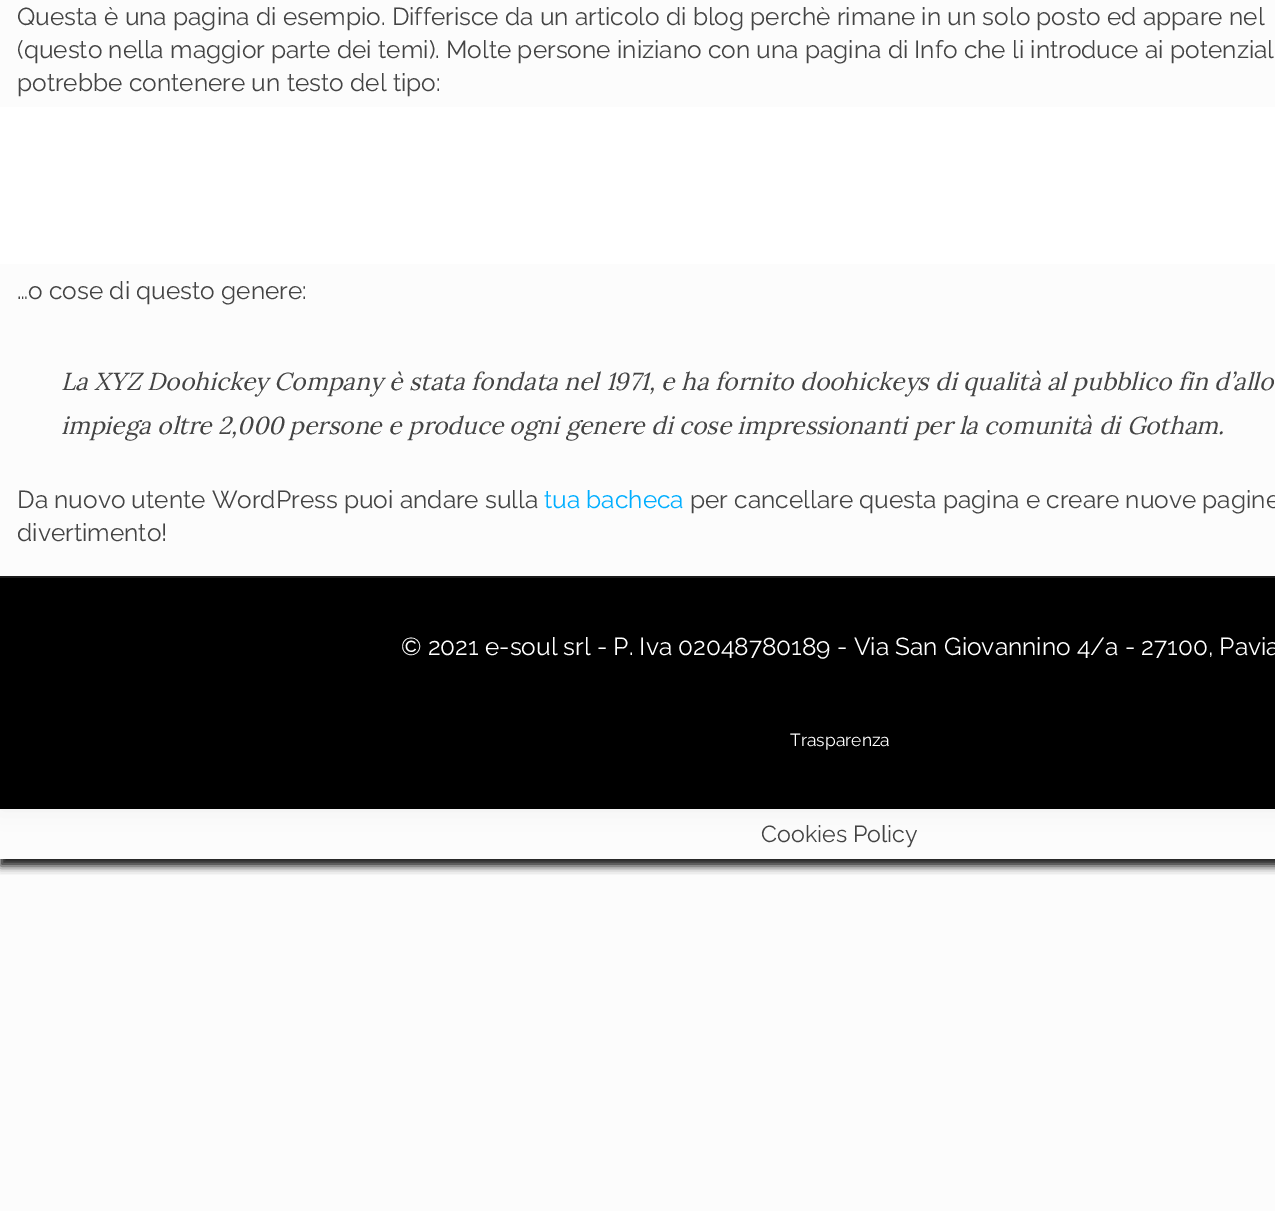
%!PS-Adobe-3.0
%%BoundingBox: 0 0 1275 1211
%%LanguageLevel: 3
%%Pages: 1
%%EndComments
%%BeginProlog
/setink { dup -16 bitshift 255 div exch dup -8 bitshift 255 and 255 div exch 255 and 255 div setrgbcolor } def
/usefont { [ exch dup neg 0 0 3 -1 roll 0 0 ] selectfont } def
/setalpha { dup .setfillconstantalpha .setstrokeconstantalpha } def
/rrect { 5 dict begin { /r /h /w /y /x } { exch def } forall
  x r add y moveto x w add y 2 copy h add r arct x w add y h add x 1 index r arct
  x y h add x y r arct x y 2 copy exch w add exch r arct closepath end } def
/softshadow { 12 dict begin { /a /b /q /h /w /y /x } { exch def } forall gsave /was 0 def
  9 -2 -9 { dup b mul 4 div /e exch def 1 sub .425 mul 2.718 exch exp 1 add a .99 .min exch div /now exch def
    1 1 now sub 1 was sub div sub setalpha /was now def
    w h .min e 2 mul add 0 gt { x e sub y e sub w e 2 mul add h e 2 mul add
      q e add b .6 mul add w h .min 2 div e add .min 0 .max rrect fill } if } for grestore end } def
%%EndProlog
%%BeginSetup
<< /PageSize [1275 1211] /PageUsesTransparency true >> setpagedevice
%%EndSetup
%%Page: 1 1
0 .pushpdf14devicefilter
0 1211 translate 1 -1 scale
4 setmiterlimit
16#FCFCFC setink
0 0 1275 1211 rectfill
16#000000 setink
0 0 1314 809 0 13 0.06 softshadow
16#FCFCFC setink
0 0 1275 576 rectfill
/Raleway-Regular 24.5 usefont
16#444444 setink
[
    [(Questa è una pagina di esempio. Differisce da un articolo di blog perchè rimane in un solo posto ed appare nel) 17 25]
    [(\(questo nella maggior parte dei temi\). Molte persone iniziano con una pagina di Info che li introduce ai potenzial) 17 58]
    [(potrebbe contenere un testo del tipo:) 17 91]
    [(…o cose di questo genere:) 17 299]
] { aload pop moveto show } forall
/Lora-Italic 24.5 usefont
61 390 moveto (La XYZ Doohickey Company è stata fondata nel 1971, e ha fornito doohickeys di qualità al pubblico fin d’allo) show
61 434 moveto (impiega oltre 2,000 persone e produce ogni genere di cose impressionanti per la comunità di Gotham.) show
/Raleway-Regular 24.5 usefont
17 508 moveto (Da nuovo utente WordPress puoi andare sulla) show
16#00AEFF setink
544 508 moveto (tua bacheca) show
16#444444 setink
690 508 moveto (per cancellare questa pagina e creare nuove pagine) show
17 541 moveto (divertimento!) show
16#FFFFFF setink
0 107 1275 157 rectfill
gsave
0 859 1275 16 rectclip
16#161616 setink
0 809 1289 57 0 4.5 1 softshadow
grestore
16#000000 setink
0 578 1275 231 rectfill
16#1A1A1A setink
0 576 1275 2 rectfill
16#FFFFFF setink
401 655 moveto (© 2021 e-soul srl - P. Iva 02048780189 - Via San Giovannino 4/a - 27100, Pavia) show
/Raleway-Regular 17.5 usefont
790 746 moveto (Trasparenza) show
/Raleway-Regular 23.25 usefont
16#444444 setink
761 842 moveto (Cookies Policy) show
.poppdf14devicefilter showpage
%%EOF
